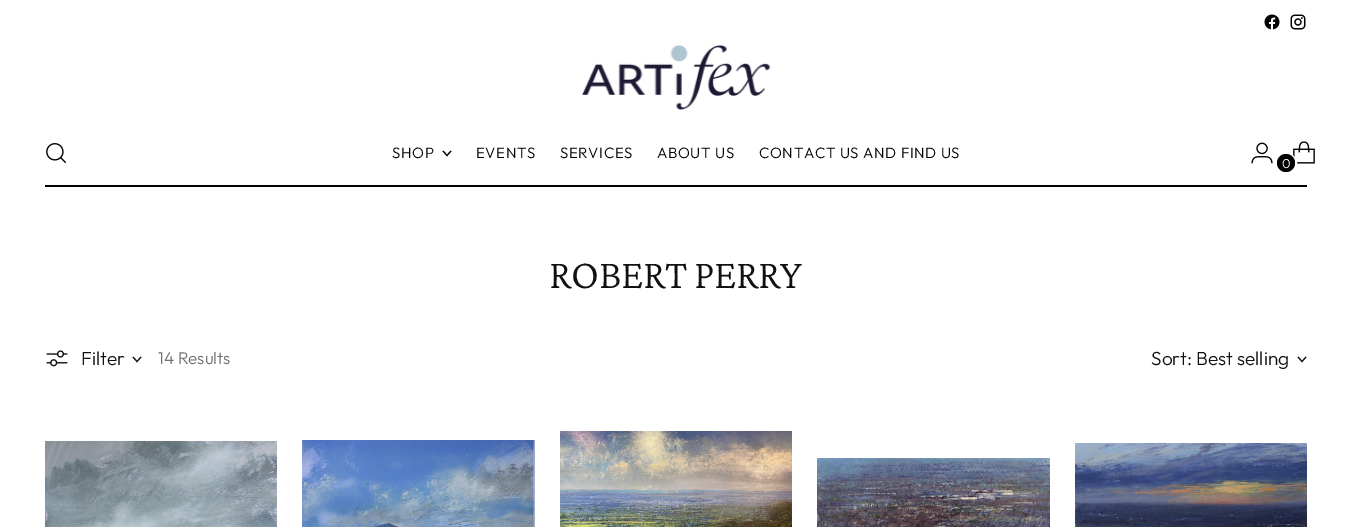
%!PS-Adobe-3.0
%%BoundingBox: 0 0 1352 527
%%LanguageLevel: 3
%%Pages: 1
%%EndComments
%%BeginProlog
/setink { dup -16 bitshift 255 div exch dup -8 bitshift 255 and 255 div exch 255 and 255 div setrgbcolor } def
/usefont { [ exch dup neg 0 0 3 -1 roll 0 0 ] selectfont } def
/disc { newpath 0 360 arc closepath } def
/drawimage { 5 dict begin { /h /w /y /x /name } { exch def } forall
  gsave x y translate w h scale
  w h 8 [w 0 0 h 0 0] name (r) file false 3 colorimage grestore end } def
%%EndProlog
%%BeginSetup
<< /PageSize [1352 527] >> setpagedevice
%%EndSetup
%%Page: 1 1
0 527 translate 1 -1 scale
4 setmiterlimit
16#FFFFFF setink
0 0 1352 527 rectfill
16#000000 setink
45 185 1262 2 rectfill
(img1.raw) 1264 14 16 16 drawimage
(img2.raw) 1290 14 16 16 drawimage
(img3.raw) 582 45 189 65 drawimage
(img4.raw) 46 143 21 21 drawimage
/Outfit-Light 15 usefont
392 158 moveto 0.6 0 (SHOP) ashow
1.1 setlinewidth
443 151 moveto 447 155.5 lineto 451 151 lineto stroke
476 158 moveto 0.6 0 (EVENTS) ashow
560 158 moveto 0.6 0 (SERVICES) ashow
657 158 moveto 0.6 0 (ABOUT US) ashow
759 158 moveto 0.6 0 (CONTACT US AND FIND US) ashow
(img5.raw) 1251 142 22 22 drawimage
(img6.raw) 1293 141 22 23 drawimage
16#FFFFFF setink
2 setlinewidth
1286.5 163.5 9.5 disc stroke
16#000000 setink
1286 163 9 disc fill
/Outfit-Light 13 usefont
16#FFFFFF setink
1282 168 moveto (0) show
/CrimsonPro-Light 42 usefont
16#111111 setink
549 288 moveto -0.5 0 (ROBERT PERRY) ashow
(img7.raw) 46 350 22 17 drawimage
/Outfit-Light 19 usefont
81 365 moveto (Filter) show
1.1 setlinewidth
133 357 moveto 137 361.5 lineto 141 357 lineto stroke
/Outfit-Light 17 usefont
16#707070 setink
158 364 moveto (14 Results) show
/Outfit-Light 19 usefont
16#111111 setink
1151 365 moveto (Sort: Best selling) show
1298 357 moveto 1302 361.5 lineto 1306 357 lineto stroke
(img8.raw) 45 441 232 86 drawimage
(img9.raw) 302 440 233 87 drawimage
(img10.raw) 560 431 232 96 drawimage
(img11.raw) 817 458 233 69 drawimage
(img12.raw) 1075 443 232 84 drawimage
showpage
%%EOF
